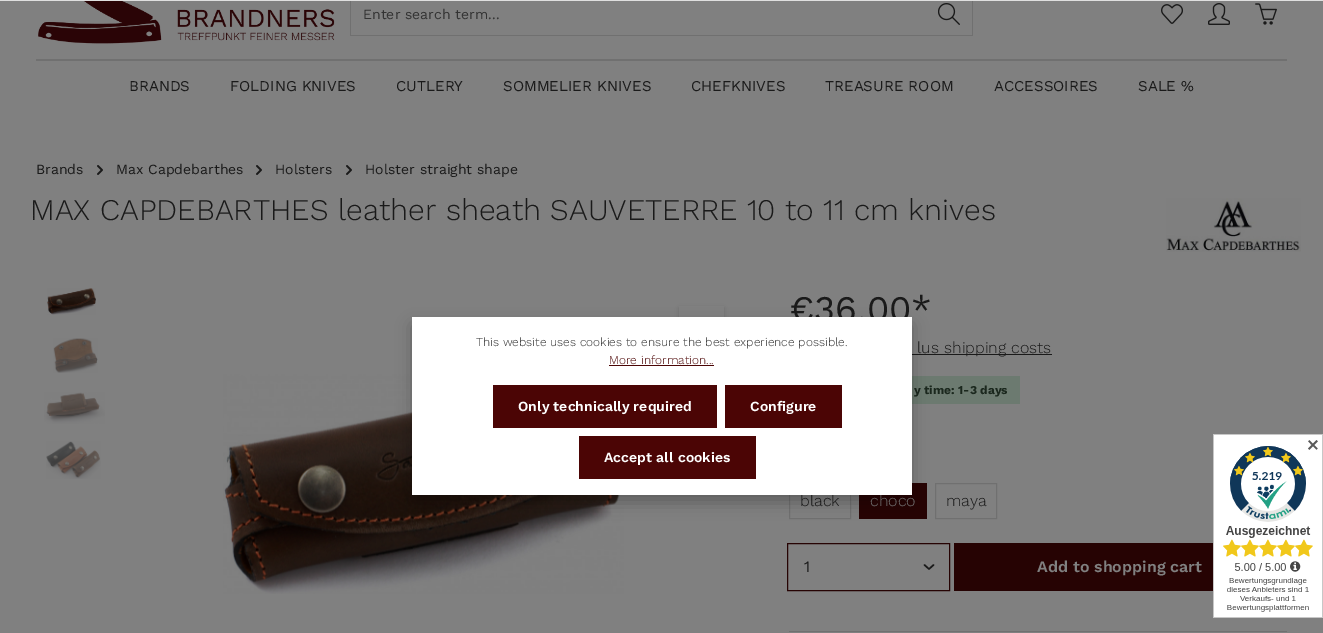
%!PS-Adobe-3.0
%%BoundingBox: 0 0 1323 633
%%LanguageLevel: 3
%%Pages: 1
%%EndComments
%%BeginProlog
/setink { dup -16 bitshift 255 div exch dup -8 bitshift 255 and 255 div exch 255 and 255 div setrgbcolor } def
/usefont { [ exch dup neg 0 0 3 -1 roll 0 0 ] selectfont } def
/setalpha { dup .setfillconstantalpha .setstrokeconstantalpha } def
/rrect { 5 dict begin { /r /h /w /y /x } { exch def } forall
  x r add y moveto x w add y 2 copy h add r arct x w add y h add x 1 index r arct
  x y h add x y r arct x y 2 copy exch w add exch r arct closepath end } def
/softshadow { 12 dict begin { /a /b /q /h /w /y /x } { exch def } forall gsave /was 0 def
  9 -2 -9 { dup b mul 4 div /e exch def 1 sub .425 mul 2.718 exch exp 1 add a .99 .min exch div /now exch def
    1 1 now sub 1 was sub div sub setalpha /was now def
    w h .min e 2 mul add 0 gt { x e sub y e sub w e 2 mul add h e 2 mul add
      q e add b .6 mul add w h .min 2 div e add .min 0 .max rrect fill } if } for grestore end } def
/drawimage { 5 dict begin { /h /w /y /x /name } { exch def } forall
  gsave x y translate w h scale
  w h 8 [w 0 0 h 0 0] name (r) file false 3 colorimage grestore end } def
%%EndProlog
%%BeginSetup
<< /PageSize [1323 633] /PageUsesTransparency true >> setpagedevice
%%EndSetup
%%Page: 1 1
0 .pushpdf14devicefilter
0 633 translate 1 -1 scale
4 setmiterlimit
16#808080 setink
0 0 1323 633 rectfill
16#6C7A70 setink
912 376 108 28 rectfill
(img1.raw) 38 1 297 43 drawimage
16#707070 setink
350 35 577 1 rectfill
350 0 1 36 rectfill
/WorkSans-Regular 14 usefont
16#333333 setink
363 19 moveto (Enter search term...) show
16#707070 setink
972 0 1 36 rectfill
926 35 47 1 rectfill
(img2.raw) 938 3 22 22 drawimage
(img3.raw) 1161 4 22 20 drawimage
(img4.raw) 1208 3 22 22 drawimage
(img5.raw) 1255 3 22 22 drawimage
36 59 1251 2 rectfill
/WorkSans-Regular 15 usefont
16#1A1A1A setink
[
    [(BRANDS) 129 91]
    [(FOLDING KNIVES) 230 91]
    [(CUTLERY) 396 91]
    [(SOMMELIER KNIVES) 503 91]
    [(CHEFKNIVES) 691 91]
    [(TREASURE ROOM) 825 91]
    [(ACCESSOIRES) 994 91]
    [(SALE %) 1138 91]
] { aload pop moveto show } forall
/WorkSans-Regular 14 usefont
36 174 moveto (Brands) show
(img6.raw) 97 165 6 10 drawimage
116 174 moveto (Max Capdebarthes) show
(img6.raw) 256 165 6 10 drawimage
275 174 moveto (Holsters) show
(img6.raw) 346 165 6 10 drawimage
365 174 moveto (Holster straight shape) show
/WorkSans-Light 30 usefont
30 220 moveto (MAX CAPDEBARTHES leather sheath SAUVETERRE 10 to 11 cm knives) show
(img7.raw) 1166 198 135 54 drawimage
(img8.raw) 47 288 49 27 drawimage
(img9.raw) 53 338 45 35 drawimage
(img10.raw) 44 392 61 32 drawimage
(img11.raw) 46 441 55 38 drawimage
gsave
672 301 moveto 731 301 lineto 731 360 lineto 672 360 lineto closepath 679 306 moveto 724 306 lineto 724 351 lineto 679 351 lineto closepath eoclip newpath
16#000000 setink
679 308 45 45 0 2 0.15 softshadow
grestore
(img12.raw) 223 374 401 220 drawimage
/WorkSans-Regular 36 usefont
789 321 moveto (€36.00*) show
912 354 140 1 rectfill
/WorkSans-Light 16 usefont
917 353 moveto (lus shipping costs) show
/WorkSans-Bold 12 usefont
16#1B281E setink
914 394 moveto (y time: 1-3 days) show
16#707070 setink
789.5 483.5 61 35 rectstroke
/WorkSans-Light 16 usefont
16#1A1A1A setink
800 506 moveto (black) show
16#260303 setink
859 483 68 36 rectfill
16#808080 setink
870 506 moveto (choco) show
16#707070 setink
935.5 483.5 61 35 rectstroke
16#1A1A1A setink
946 506 moveto (maya) show
1.5 setlinewidth
1 setlinecap
1 setlinejoin
924.5 565 moveto 929 569 lineto 933.5 565 lineto stroke
16#260303 setink
1 setlinewidth
0 setlinecap
0 setlinejoin
787.5 543.5 162 47 rectstroke
/WorkSans-Regular 16 usefont
16#1A1A1A setink
804 572 moveto (1) show
16#260303 setink
954 543 259 48 rectfill
/WorkSans-SemiBold 16 usefont
16#808080 setink
1037 572 moveto (Add to shopping cart) show
16#707070 setink
789 631 498 1 rectfill
16#DFDFDF setink
0 0 1323 1 rectfill
16#000000 setink
412 325 500 178 0 8 0.25 softshadow
16#FFFFFF setink
412 317 500 178 rectfill
/WorkSans-Light 12 usefont
16#333333 setink
476 346 moveto (This website uses cookies to ensure the best experience possible.) show
16#4B0505 setink
609 364 moveto (More information...) show
609 365 105 1 rectfill
493 385 224 43 rectfill
/WorkSans-SemiBold 14 usefont
16#FFFFFF setink
518 411 moveto (Only technically required) show
16#4B0505 setink
725 385 117 43 rectfill
16#FFFFFF setink
750 411 moveto (Configure) show
16#4B0505 setink
579 436 177 43 rectfill
16#FFFFFF setink
604 462 moveto (Accept all cookies) show
(img13.raw) 1213 434 110 184 drawimage
/DejaVuSans-Bold 16 usefont
16#595959 setink
1306 451 moveto (✕) show
.poppdf14devicefilter showpage
%%EOF
